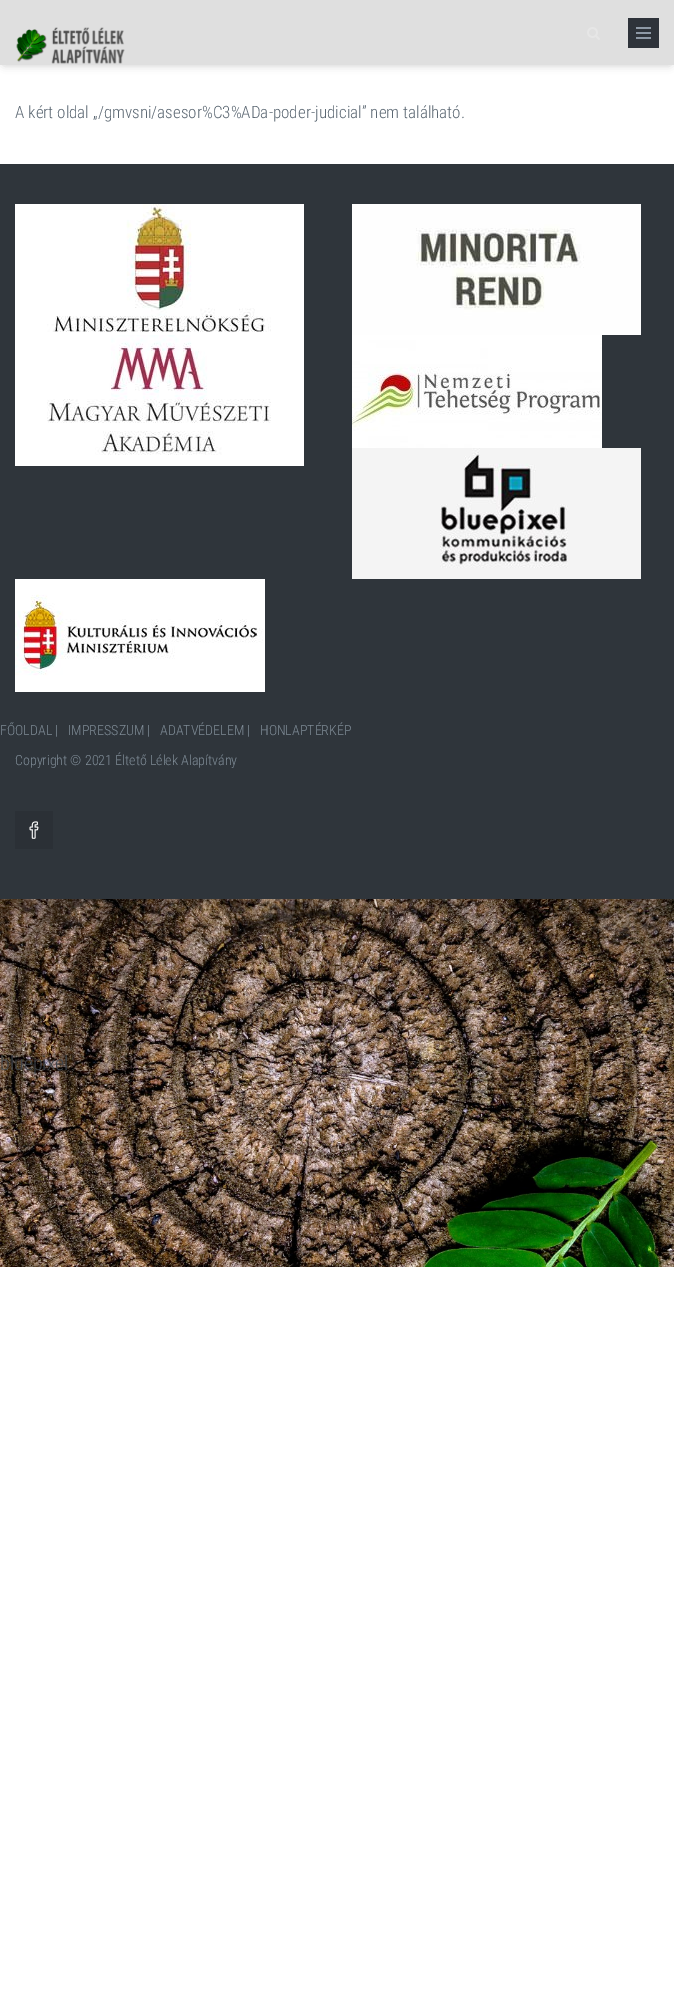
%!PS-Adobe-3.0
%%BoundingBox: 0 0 674 2013
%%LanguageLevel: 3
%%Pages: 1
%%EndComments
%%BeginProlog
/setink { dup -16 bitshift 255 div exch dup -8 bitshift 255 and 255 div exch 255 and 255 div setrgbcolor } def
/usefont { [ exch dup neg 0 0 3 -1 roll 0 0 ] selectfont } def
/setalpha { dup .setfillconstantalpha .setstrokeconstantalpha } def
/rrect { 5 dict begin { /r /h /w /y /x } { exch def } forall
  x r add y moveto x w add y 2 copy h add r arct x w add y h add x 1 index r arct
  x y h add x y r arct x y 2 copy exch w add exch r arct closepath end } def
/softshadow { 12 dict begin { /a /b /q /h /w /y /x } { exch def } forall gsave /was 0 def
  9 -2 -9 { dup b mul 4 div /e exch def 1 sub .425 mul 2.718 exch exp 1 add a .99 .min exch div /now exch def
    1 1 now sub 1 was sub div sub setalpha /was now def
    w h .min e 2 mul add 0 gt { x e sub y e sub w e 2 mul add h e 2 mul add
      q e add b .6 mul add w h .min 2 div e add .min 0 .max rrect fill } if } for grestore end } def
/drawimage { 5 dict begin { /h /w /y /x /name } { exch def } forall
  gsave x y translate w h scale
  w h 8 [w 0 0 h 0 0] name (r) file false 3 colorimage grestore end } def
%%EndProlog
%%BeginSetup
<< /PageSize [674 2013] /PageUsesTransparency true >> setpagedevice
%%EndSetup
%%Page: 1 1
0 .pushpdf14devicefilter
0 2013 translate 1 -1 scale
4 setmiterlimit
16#FFFFFF setink
0 0 674 2013 rectfill
16#000000 setink
4 7 666 57 0 4.5 0.25 softshadow
16#DFDFDF setink
0 0 674 65 rectfill
(img1.raw) 16 27 109 37 drawimage
(img2.raw) 587 27 13 13 drawimage
[
    [628 18 31 30 16#2E333A]
    [636 27 15 2 16#8E99A6]
    [636 32 15 2 16#8E99A6]
    [636 37 15 2 16#8E99A6]
] { aload pop setink rectfill } forall
/RobotoCondensed-Light 17 usefont
16#5C6873 setink
15 118 moveto (A kért oldal „/gmvsni/asesor%C3%ADa-poder-judicial” nem található.) show
16#2F353B setink
0 164 674 735 rectfill
(img3.raw) 15 204 289 131 drawimage
(img4.raw) 352 204 289 131 drawimage
(img5.raw) 15 335 289 131 drawimage
(img6.raw) 352 335 250 113 drawimage
(img7.raw) 352 448 289 131 drawimage
(img8.raw) 15 579 250 113 drawimage
/RobotoCondensed-Light 14 usefont
16#7F8C97 setink
[
    [(FŐOLDAL |) 0 735]
    [(IMPRESSZUM |) 68 735]
    [(ADATVÉDELEM |) 160 735]
    [(HONLAPTÉRKÉP) 260 735]
    [(Copyright © 2021 Éltető Lélek Alapítvány) 15 765]
] { aload pop moveto show } forall
16#2B3036 setink
15 811 38 38 rectfill
(img9.raw) 29 821 10 18 drawimage
(img10.raw) 0 899 674 368 drawimage
/RobotoCondensed-Light 20 usefont
16#3F444A setink
0 1070 moveto (bluepixel) show
.poppdf14devicefilter showpage
%%EOF
